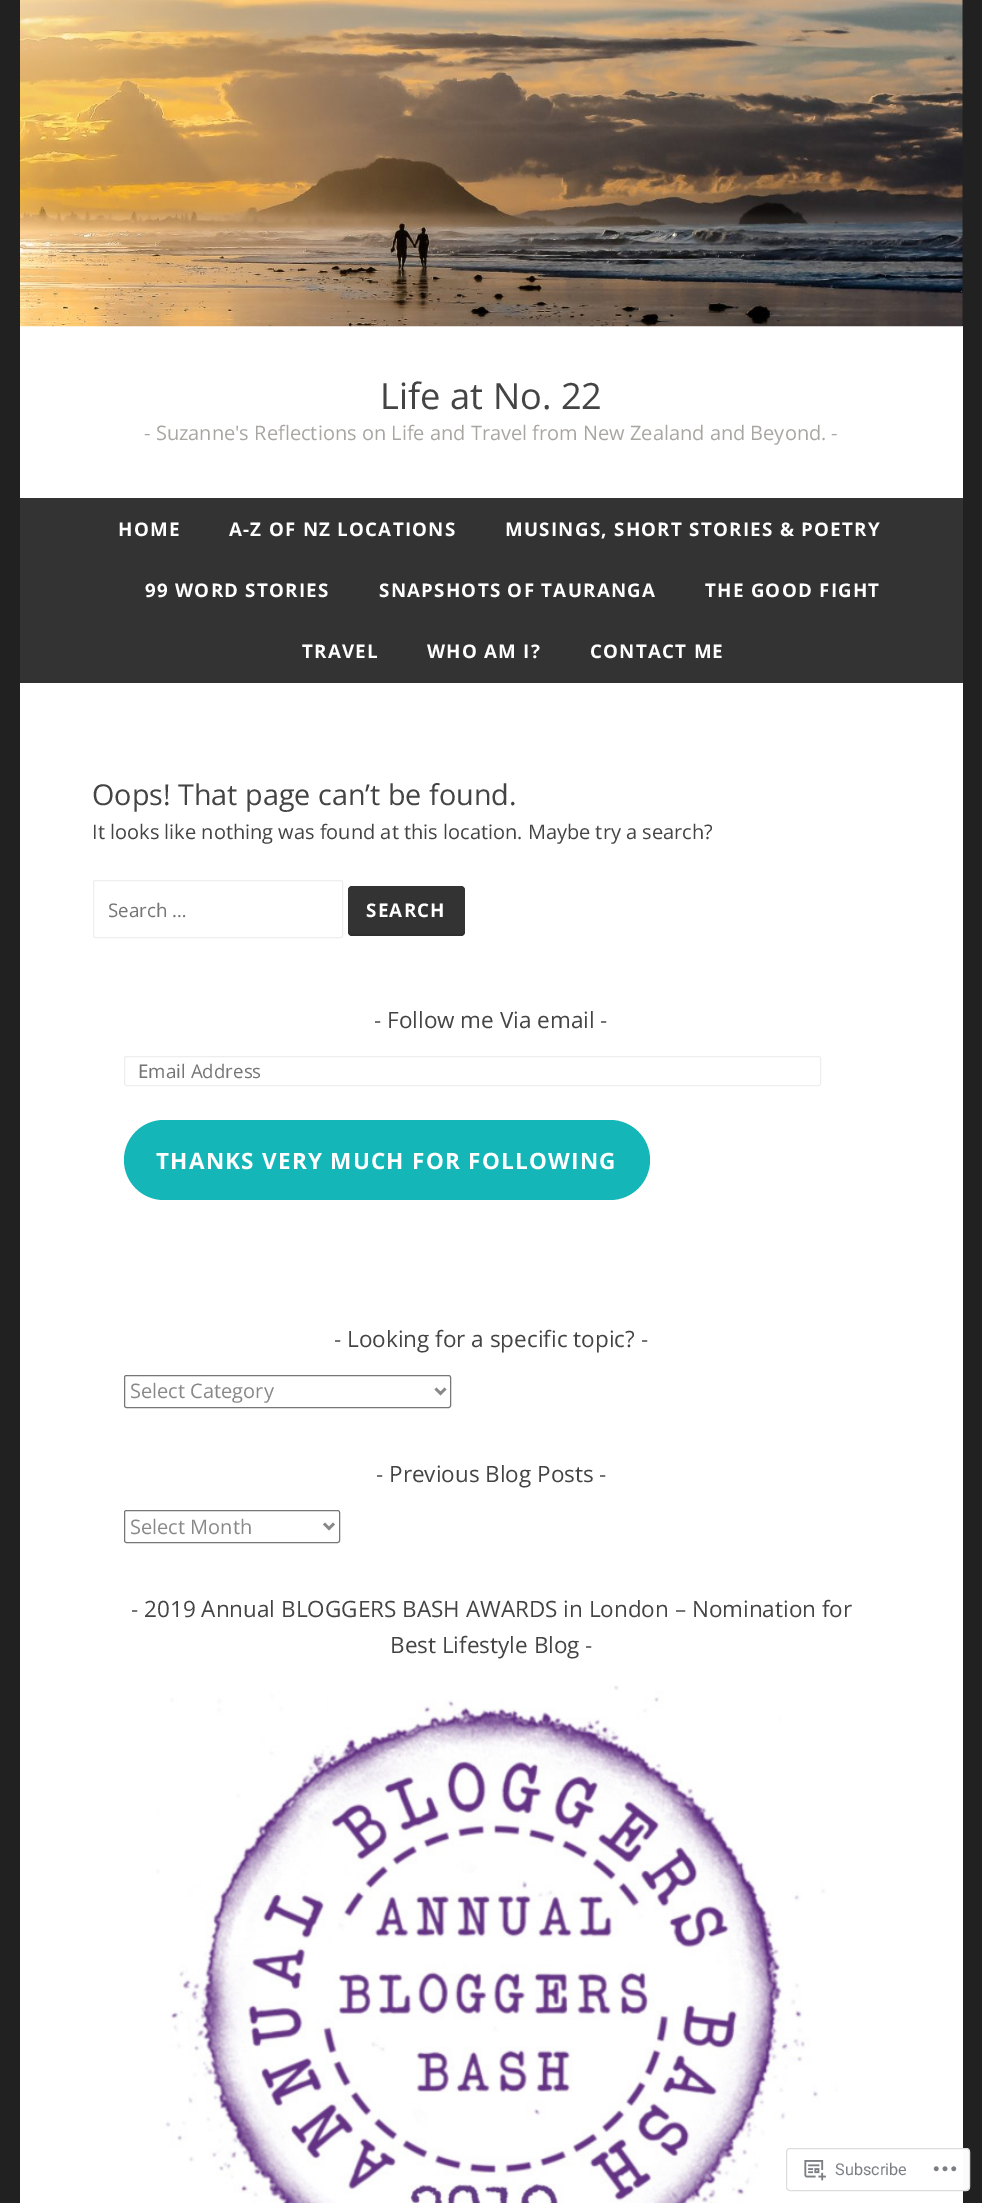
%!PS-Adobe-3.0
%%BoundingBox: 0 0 982 2203
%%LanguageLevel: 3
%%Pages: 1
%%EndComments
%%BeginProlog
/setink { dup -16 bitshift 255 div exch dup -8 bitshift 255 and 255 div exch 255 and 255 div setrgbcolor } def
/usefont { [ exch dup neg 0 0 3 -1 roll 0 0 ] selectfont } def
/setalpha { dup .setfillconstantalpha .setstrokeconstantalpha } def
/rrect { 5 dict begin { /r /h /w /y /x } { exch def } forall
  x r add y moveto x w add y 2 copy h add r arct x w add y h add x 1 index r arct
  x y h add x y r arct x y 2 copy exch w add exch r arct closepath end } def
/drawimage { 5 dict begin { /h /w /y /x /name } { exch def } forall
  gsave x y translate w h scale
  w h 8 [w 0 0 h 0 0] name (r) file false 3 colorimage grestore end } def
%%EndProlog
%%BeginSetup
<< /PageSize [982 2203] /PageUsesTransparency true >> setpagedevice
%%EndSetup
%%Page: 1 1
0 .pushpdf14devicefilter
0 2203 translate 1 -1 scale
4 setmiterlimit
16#212121 setink
0 0 982 2203 rectfill
16#FFFFFF setink
20 326 943 172 rectfill
(img1.raw) 20 0 943 327 drawimage
/OpenSans-Regular 36.25 usefont
16#444444 setink
380 409 moveto (Life at No. 22) show
/OpenSans-Regular 20 usefont
16#A8A6A1 setink
144 440 moveto (- Suzanne's Reflections on Life and Travel from New Zealand and Beyond. -) show
16#333333 setink
20 498 943 182 rectfill
16#313131 setink
20 680 943 3 rectfill
/OpenSans-Bold 18.75 usefont
16#FFFFFF setink
118 536 moveto 1.25 0 (HOME) ashow
229 536 moveto 1.25 0 (A-Z OF NZ LOCATIONS) ashow
505 536 moveto 1.25 0 (MUSINGS, SHORT STORIES & POETRY) ashow
145 597 moveto 1.25 0 (99 WORD STORIES) ashow
379 597 moveto 1.25 0 (SNAPSHOTS OF TAURANGA) ashow
705 597 moveto 1.25 0 (THE GOOD FIGHT) ashow
302 658 moveto 1.25 0 (TRAVEL) ashow
427 658 moveto 1.25 0 (WHO AM I?) ashow
590 658 moveto 1.25 0 (CONTACT ME) ashow
20 683 943 1520 rectfill
/OpenSans-Regular 28.75 usefont
16#444444 setink
92 805 moveto (Oops! That page can’t be found.) show
/OpenSans-Regular 20 usefont
92 839 moveto (It looks like nothing was found at this location. Maybe try a search?) show
16#EEEEEE setink
93.5 880.5 249 57 2 rrect stroke
/OpenSans-Regular 18.75 usefont
16#757575 setink
108 917 moveto (Search …) show
16#333333 setink
348 886 117 50 4 rrect fill
0.1 setalpha
16#000000 setink
348 930 moveto 348 932 lineto 348 934 350 936 352 936 curveto 461 936 lineto 463 936 465 934 465 932 curveto 465 930 lineto 465 932 463 934 461 934 curveto 351 934 lineto 349 934 348 932 348 930 curveto closepath fill
/OpenSans-Bold 18.75 usefont
1 setalpha
16#FFFFFF setink
366 917 moveto 1.25 0 (SEARCH) ashow
/OpenSans-Regular 22.5 usefont
16#444444 setink
374 1028 moveto (- Follow me Via email -) show
16#EEEEEE setink
124.5 1056.5 696 29 2 rrect stroke
/OpenSans-Regular 18.75 usefont
16#757575 setink
138 1078 moveto (Email Address) show
16#15B6B8 setink
124 1120 526 80 40 rrect fill
/OpenSans-Bold 22.5 usefont
16#FFFFFF setink
156 1169 moveto 1.25 0 (THANKS VERY MUCH FOR FOLLOWING) ashow
/OpenSans-Regular 22.5 usefont
16#444444 setink
334 1347 moveto (- Looking for a specific topic? -) show
16#767676 setink
124.5 1375.5 326 32 2 rrect stroke
16#888888 setink
2.5 setlinewidth
435.5 1388.5 moveto 440.5 1393.5 lineto 445.5 1388.5 lineto stroke
/OpenSans-Regular 20 usefont
130 1398 moveto (Select Category) show
/OpenSans-Regular 22.5 usefont
16#444444 setink
376 1482 moveto (- Previous Blog Posts -) show
16#767676 setink
1 setlinewidth
124.5 1510.5 215 32 2 rrect stroke
16#888888 setink
2.5 setlinewidth
324 1523.5 moveto 329 1528.5 lineto 334 1523.5 lineto stroke
/OpenSans-Regular 20 usefont
130 1534 moveto (Select Month) show
/OpenSans-Regular 22.5 usefont
16#444444 setink
131 1617 moveto (- 2019 Annual BLOGGERS BASH AWARDS in London – Nomination for) show
390 1653 moveto (Best Lifestyle Blog -) show
(img2.raw) 156 1685 682 518 drawimage
0.98 setalpha
16#FFFFFF setink
786 2148 184 43 4 rrect fill
16#DCDCDE setink
1 setlinewidth
786.5 2148.5 183 42 3.5 rrect stroke
1 setalpha
(img3.raw) 804 2160 22 21 drawimage
/Roboto-Regular 16.25 usefont
16#7B7F85 setink
835 2175 moveto (Subscribe) show
(img4.raw) 933 2166 24 6 drawimage
.poppdf14devicefilter showpage
%%EOF
